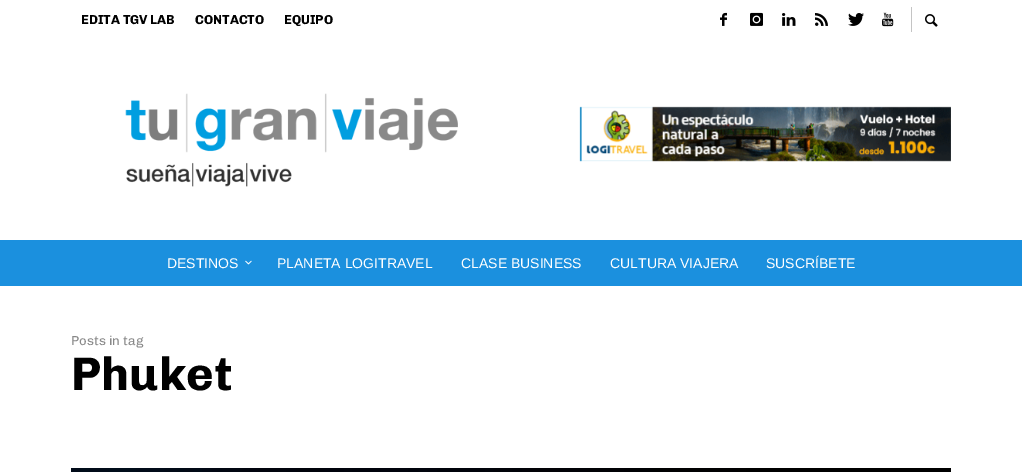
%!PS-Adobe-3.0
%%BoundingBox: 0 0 1022 472
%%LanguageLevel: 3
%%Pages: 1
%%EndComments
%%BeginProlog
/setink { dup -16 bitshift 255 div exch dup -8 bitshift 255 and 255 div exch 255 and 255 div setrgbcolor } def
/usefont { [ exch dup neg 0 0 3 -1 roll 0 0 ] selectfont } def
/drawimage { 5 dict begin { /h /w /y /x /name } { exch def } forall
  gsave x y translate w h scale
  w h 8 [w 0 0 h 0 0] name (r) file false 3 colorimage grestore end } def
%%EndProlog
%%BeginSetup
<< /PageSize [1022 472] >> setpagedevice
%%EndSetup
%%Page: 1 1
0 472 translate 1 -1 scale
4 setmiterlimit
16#FFFFFF setink
0 0 1022 472 rectfill
/Chivo-Bold 13 usefont
16#000000 setink
[
    [(EDITA TGV LAB) 81 24]
    [(CONTACTO) 195 24]
    [(EQUIPO) 284 24]
] { aload pop moveto show } forall
(img1.raw) 720 12 7 14 drawimage
(img2.raw) 750 12 13 14 drawimage
(img3.raw) 782 13 14 13 drawimage
(img4.raw) 815 13 13 13 drawimage
(img5.raw) 848 13 16 13 drawimage
(img6.raw) 882 12 12 15 drawimage
16#C4C4C4 setink
911 7 1 25 rectfill
(img7.raw) 925 14 13 13 drawimage
(img8.raw) 125 93 333 94 drawimage
(img9.raw) 579 106 372 56 drawimage
16#1B90DE setink
0 240 1022 46 rectfill
/LiberationSans-Regular 14 usefont
16#FFFFFF setink
167 268 moveto (DESTINOS) show
(img10.raw) 245 260 7 5 drawimage
[
    [(PLANETA LOGITRAVEL) 277 268]
    [(CLASE BUSINESS) 461 268]
    [(CULTURA VIAJERA) 610 268]
    [(SUSCRÍBETE) 766 268]
] { aload pop moveto show } forall
/Chivo-Regular 13 usefont
16#888888 setink
71 345 moveto (Posts in tag) show
/Chivo-Bold 47 usefont
16#000000 setink
71 390 moveto (Phuket) show
(img11.raw) 71 468 880 4 drawimage
showpage
%%EOF
